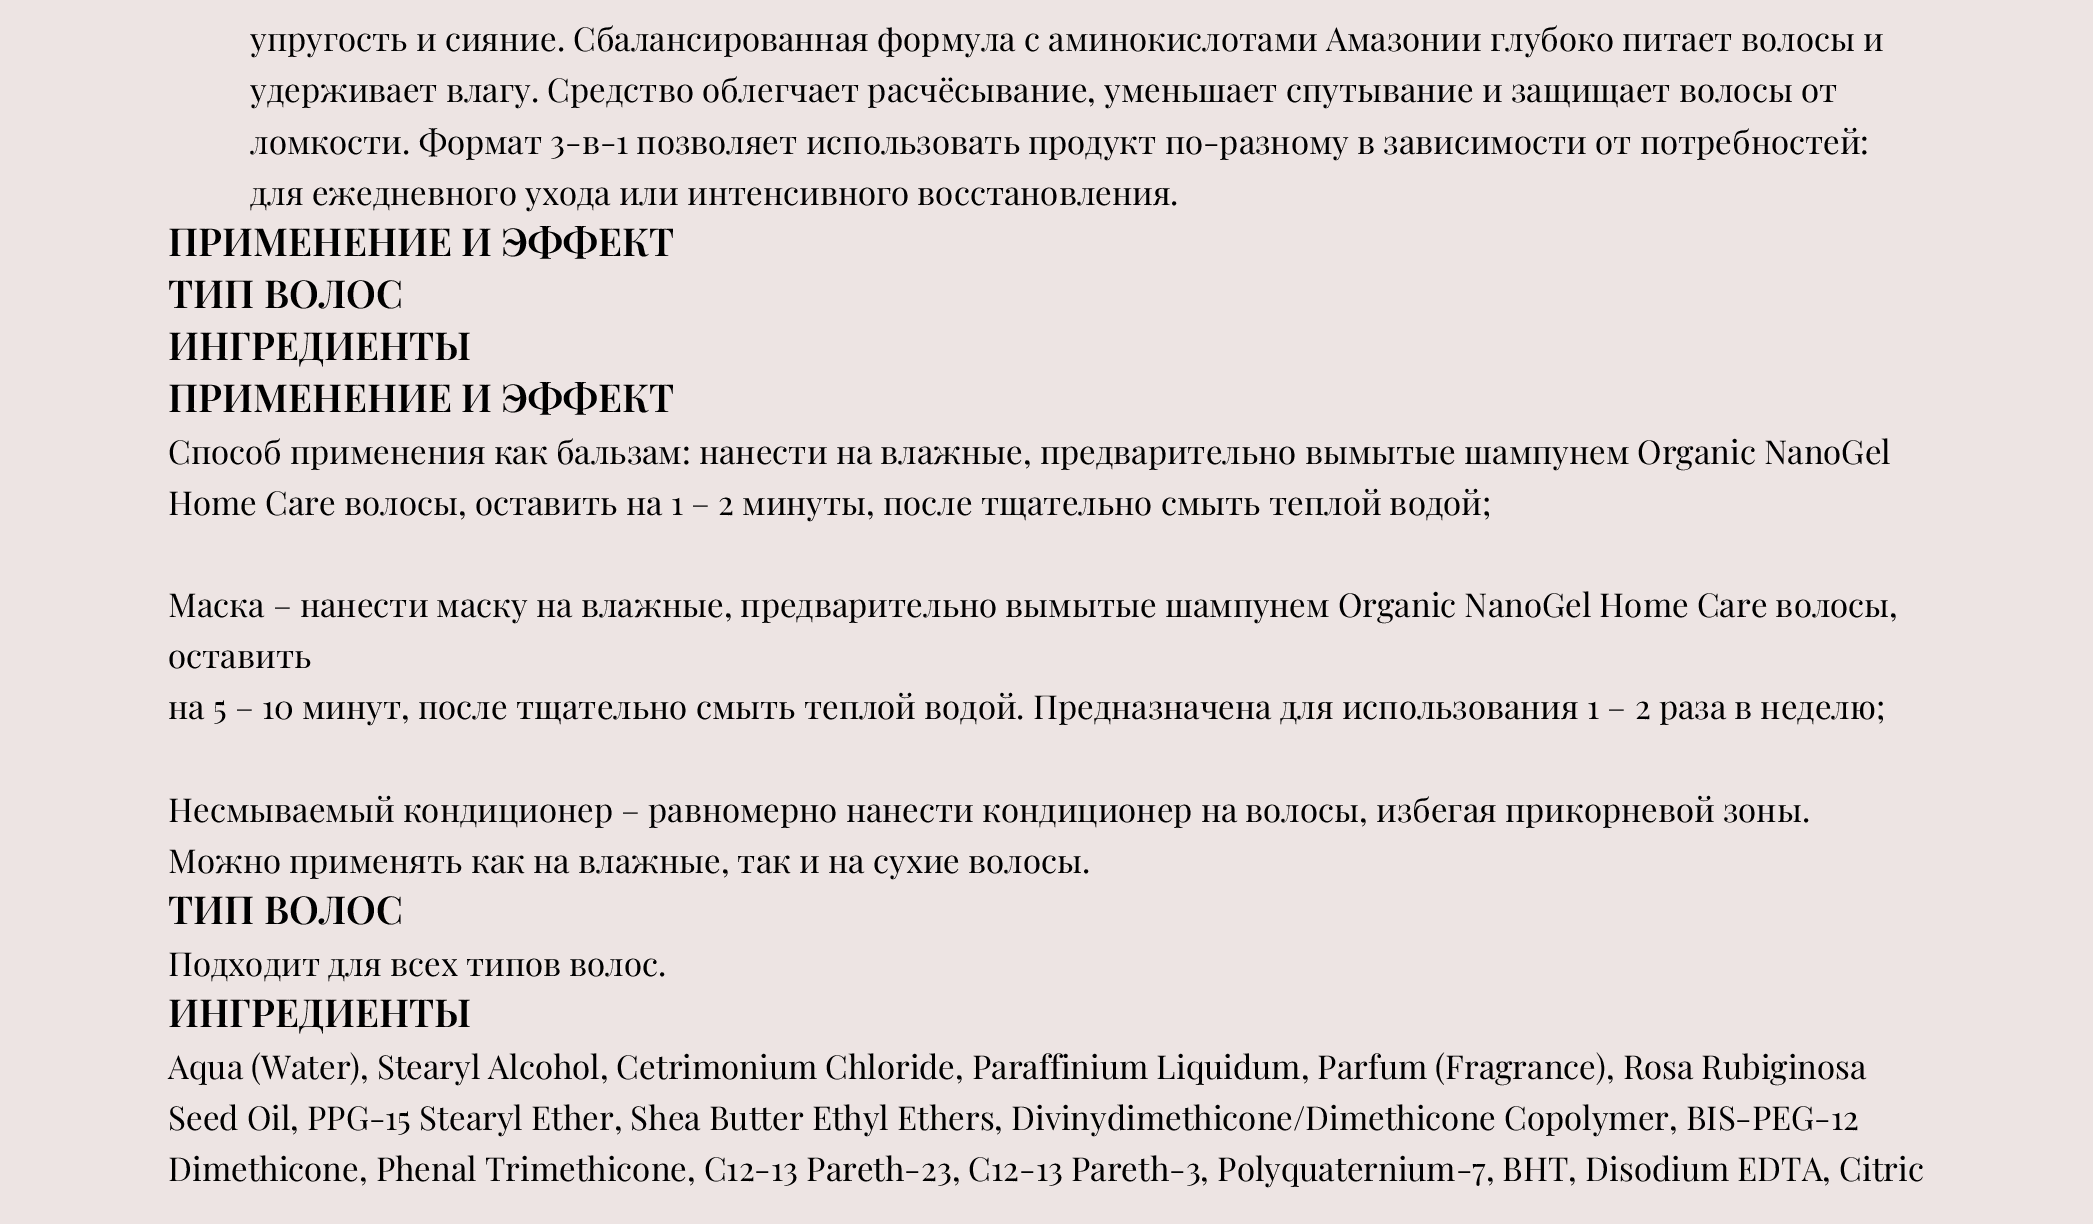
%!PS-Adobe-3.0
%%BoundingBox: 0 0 2093 1224
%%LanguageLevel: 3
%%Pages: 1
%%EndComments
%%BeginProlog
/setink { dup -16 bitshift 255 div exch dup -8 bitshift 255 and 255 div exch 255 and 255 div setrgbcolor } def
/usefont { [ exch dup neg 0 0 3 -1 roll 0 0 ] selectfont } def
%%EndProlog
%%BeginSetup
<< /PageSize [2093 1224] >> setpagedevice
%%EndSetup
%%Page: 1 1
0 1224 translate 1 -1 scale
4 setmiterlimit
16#EDE4E3 setink
0 0 2093 1224 rectfill
/PlayfairDisplay-Regular 33 usefont
16#000000 setink
[
    [(упругость и сияние. Сбалансированная формула с аминокислотами Амазонии глубоко питает волосы и) 250 51]
    [(удерживает влагу. Средство облегчает расчёсывание, уменьшает спутывание и защищает волосы от) 250 102]
    [(ломкости. Формат 3-в-1 позволяет использовать продукт по-разному в зависимости от потребностей:) 250 154]
    [(для ежедневного ухода или интенсивного восстановления.) 250 205]
] { aload pop moveto show } forall
/PlayfairDisplay-SemiBold 38.5 usefont
[
    [(ПРИМЕНЕНИЕ И ЭФФЕКТ) 168 256]
    [(ТИП ВОЛОС) 168 308]
    [(ИНГРЕДИЕНТЫ) 168 360]
    [(ПРИМЕНЕНИЕ И ЭФФЕКТ) 168 412]
] { aload pop moveto show } forall
/PlayfairDisplay-Regular 33 usefont
[
    [(Способ применения как бальзам: нанести на влажные, предварительно вымытые шампунем Organic NanoGel) 168 464]
    [(Home Care волосы, оставить на 1 – 2 минуты, после тщательно смыть теплой водой;) 168 515]
    [(Маска – нанести маску на влажные, предварительно вымытые шампунем Organic NanoGel Home Care волосы,) 168 617]
    [(оставить) 168 668]
    [(на 5 – 10 минут, после тщательно смыть теплой водой. Предназначена для использования 1 – 2 раза в неделю;) 168 719]
    [(Несмываемый кондиционер – равномерно нанести кондиционер на волосы, избегая прикорневой зоны.) 168 822]
    [(Можно применять как на влажные, так и на сухие волосы.) 168 873]
] { aload pop moveto show } forall
/PlayfairDisplay-SemiBold 38.5 usefont
168 924 moveto (ТИП ВОЛОС) show
/PlayfairDisplay-Regular 33 usefont
168 976 moveto (Подходит для всех типов волос.) show
/PlayfairDisplay-SemiBold 38.5 usefont
168 1027 moveto (ИНГРЕДИЕНТЫ) show
/PlayfairDisplay-Regular 33 usefont
[
    [(Aqua \(Water\), Stearyl Alcohol, Cetrimonium Chloride, Paraffinium Liquidum, Parfum \(Fragrance\), Rosa Rubiginosa) 168 1079]
    [(Seed Oil, PPG-15 Stearyl Ether, Shea Butter Ethyl Ethers, Divinydimethicone/Dimethicone Copolymer, BIS-PEG-12) 168 1130]
    [(Dimethicone, Phenal Trimethicone, C12-13 Pareth-23, C12-13 Pareth-3, Polyquaternium-7, BHT, Disodium EDTA, Citric) 168 1181]
] { aload pop moveto show } forall
showpage
%%EOF
